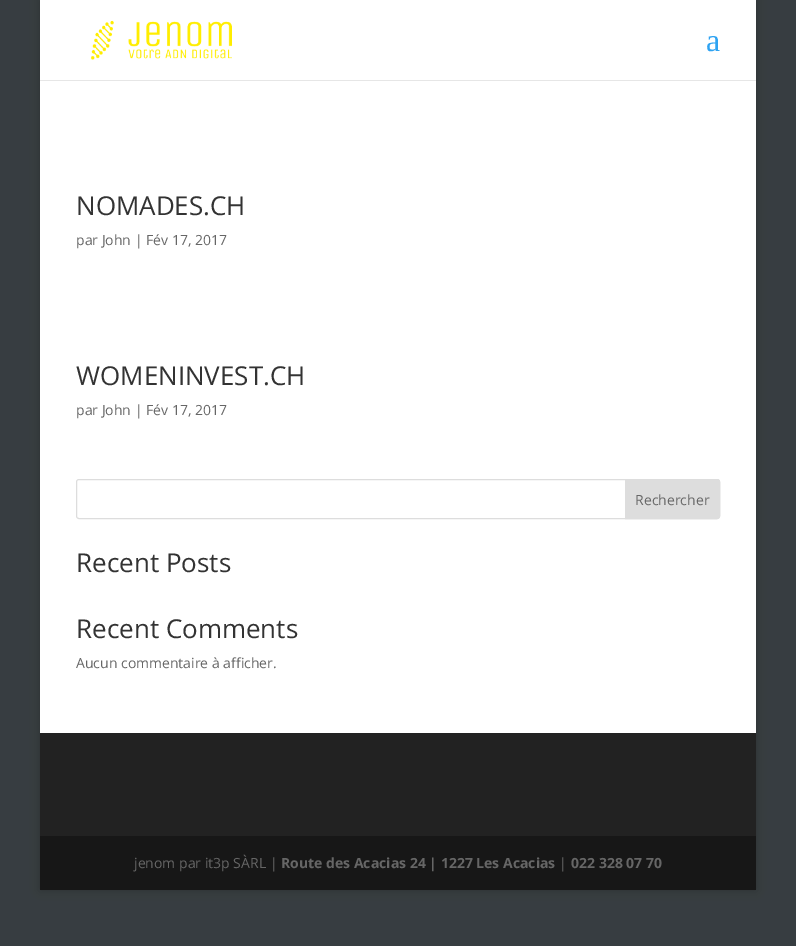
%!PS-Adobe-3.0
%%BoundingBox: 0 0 796 946
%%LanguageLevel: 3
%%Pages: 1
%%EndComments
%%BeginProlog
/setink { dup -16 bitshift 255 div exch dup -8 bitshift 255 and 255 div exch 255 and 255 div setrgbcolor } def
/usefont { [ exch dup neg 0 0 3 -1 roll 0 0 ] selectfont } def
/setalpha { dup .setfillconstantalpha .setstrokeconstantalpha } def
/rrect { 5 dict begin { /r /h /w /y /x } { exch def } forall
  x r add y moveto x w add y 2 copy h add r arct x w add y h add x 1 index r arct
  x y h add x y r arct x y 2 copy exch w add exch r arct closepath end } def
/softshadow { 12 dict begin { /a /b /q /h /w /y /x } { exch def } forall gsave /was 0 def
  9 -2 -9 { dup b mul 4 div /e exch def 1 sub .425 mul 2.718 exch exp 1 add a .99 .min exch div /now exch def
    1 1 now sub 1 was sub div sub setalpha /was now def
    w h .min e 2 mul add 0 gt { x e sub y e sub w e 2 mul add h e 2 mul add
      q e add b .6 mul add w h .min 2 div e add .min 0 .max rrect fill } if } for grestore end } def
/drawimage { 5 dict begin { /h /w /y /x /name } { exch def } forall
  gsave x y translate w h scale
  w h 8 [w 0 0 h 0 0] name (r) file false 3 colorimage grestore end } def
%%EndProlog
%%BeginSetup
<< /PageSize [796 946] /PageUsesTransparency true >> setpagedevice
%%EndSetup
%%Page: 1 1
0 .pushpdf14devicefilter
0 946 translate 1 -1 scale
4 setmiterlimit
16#373D41 setink
0 0 796 946 rectfill
16#000000 setink
40 0 716 890 0 5 0.2 softshadow
16#E6E6E6 setink
40 80 716 1 rectfill
16#FFFFFF setink
40 0 716 80 rectfill
(img1.raw) 90 20 142 40 drawimage
/LiberationSerif-Regular 32 usefont
16#2EA3F2 setink
706 51 moveto (a) show
16#FFFFFF setink
40 81 716 652 rectfill
/OpenSans-Regular 26 usefont
16#333333 setink
76 215 moveto (NOMADES.CH) show
/OpenSans-Regular 14 usefont
16#666666 setink
76 245 moveto (par John | Fév 17, 2017) show
/OpenSans-Regular 26 usefont
16#333333 setink
76 385 moveto (WOMENINVEST.CH) show
/OpenSans-Regular 14 usefont
16#666666 setink
76 415 moveto (par John | Fév 17, 2017) show
16#DDDDDD setink
76.5 479.5 643 39 2.5 rrect stroke
625.5 479.5 moveto 717 479.5 lineto 718.5 479.5 719.5 480.5 719.5 482 curveto 719.5 516 lineto 719.5 517.5 718.5 518.5 717 518.5 curveto 625.5 518.5 lineto closepath gsave fill grestore
stroke
16#666666 setink
635 505 moveto (Rechercher) show
/OpenSans-Regular 26 usefont
16#333333 setink
76 572 moveto (Recent Posts) show
76 638 moveto (Recent Comments) show
/OpenSans-Regular 14 usefont
16#666666 setink
76 668 moveto (Aucun commentaire à afficher.) show
16#222222 setink
40 733 716 103 rectfill
16#171717 setink
40 836 716 54 rectfill
16#666666 setink
134 868 moveto (jenom par it3p SÀRL |) show
/OpenSans-Bold 14 usefont
281 868 moveto (Route des Acacias 24 | 1227 Les Acacias) show
/OpenSans-Regular 14 usefont
559 868 moveto (|) show
/OpenSans-Bold 14 usefont
571 868 moveto (022 328 07 70) show
.poppdf14devicefilter showpage
%%EOF
